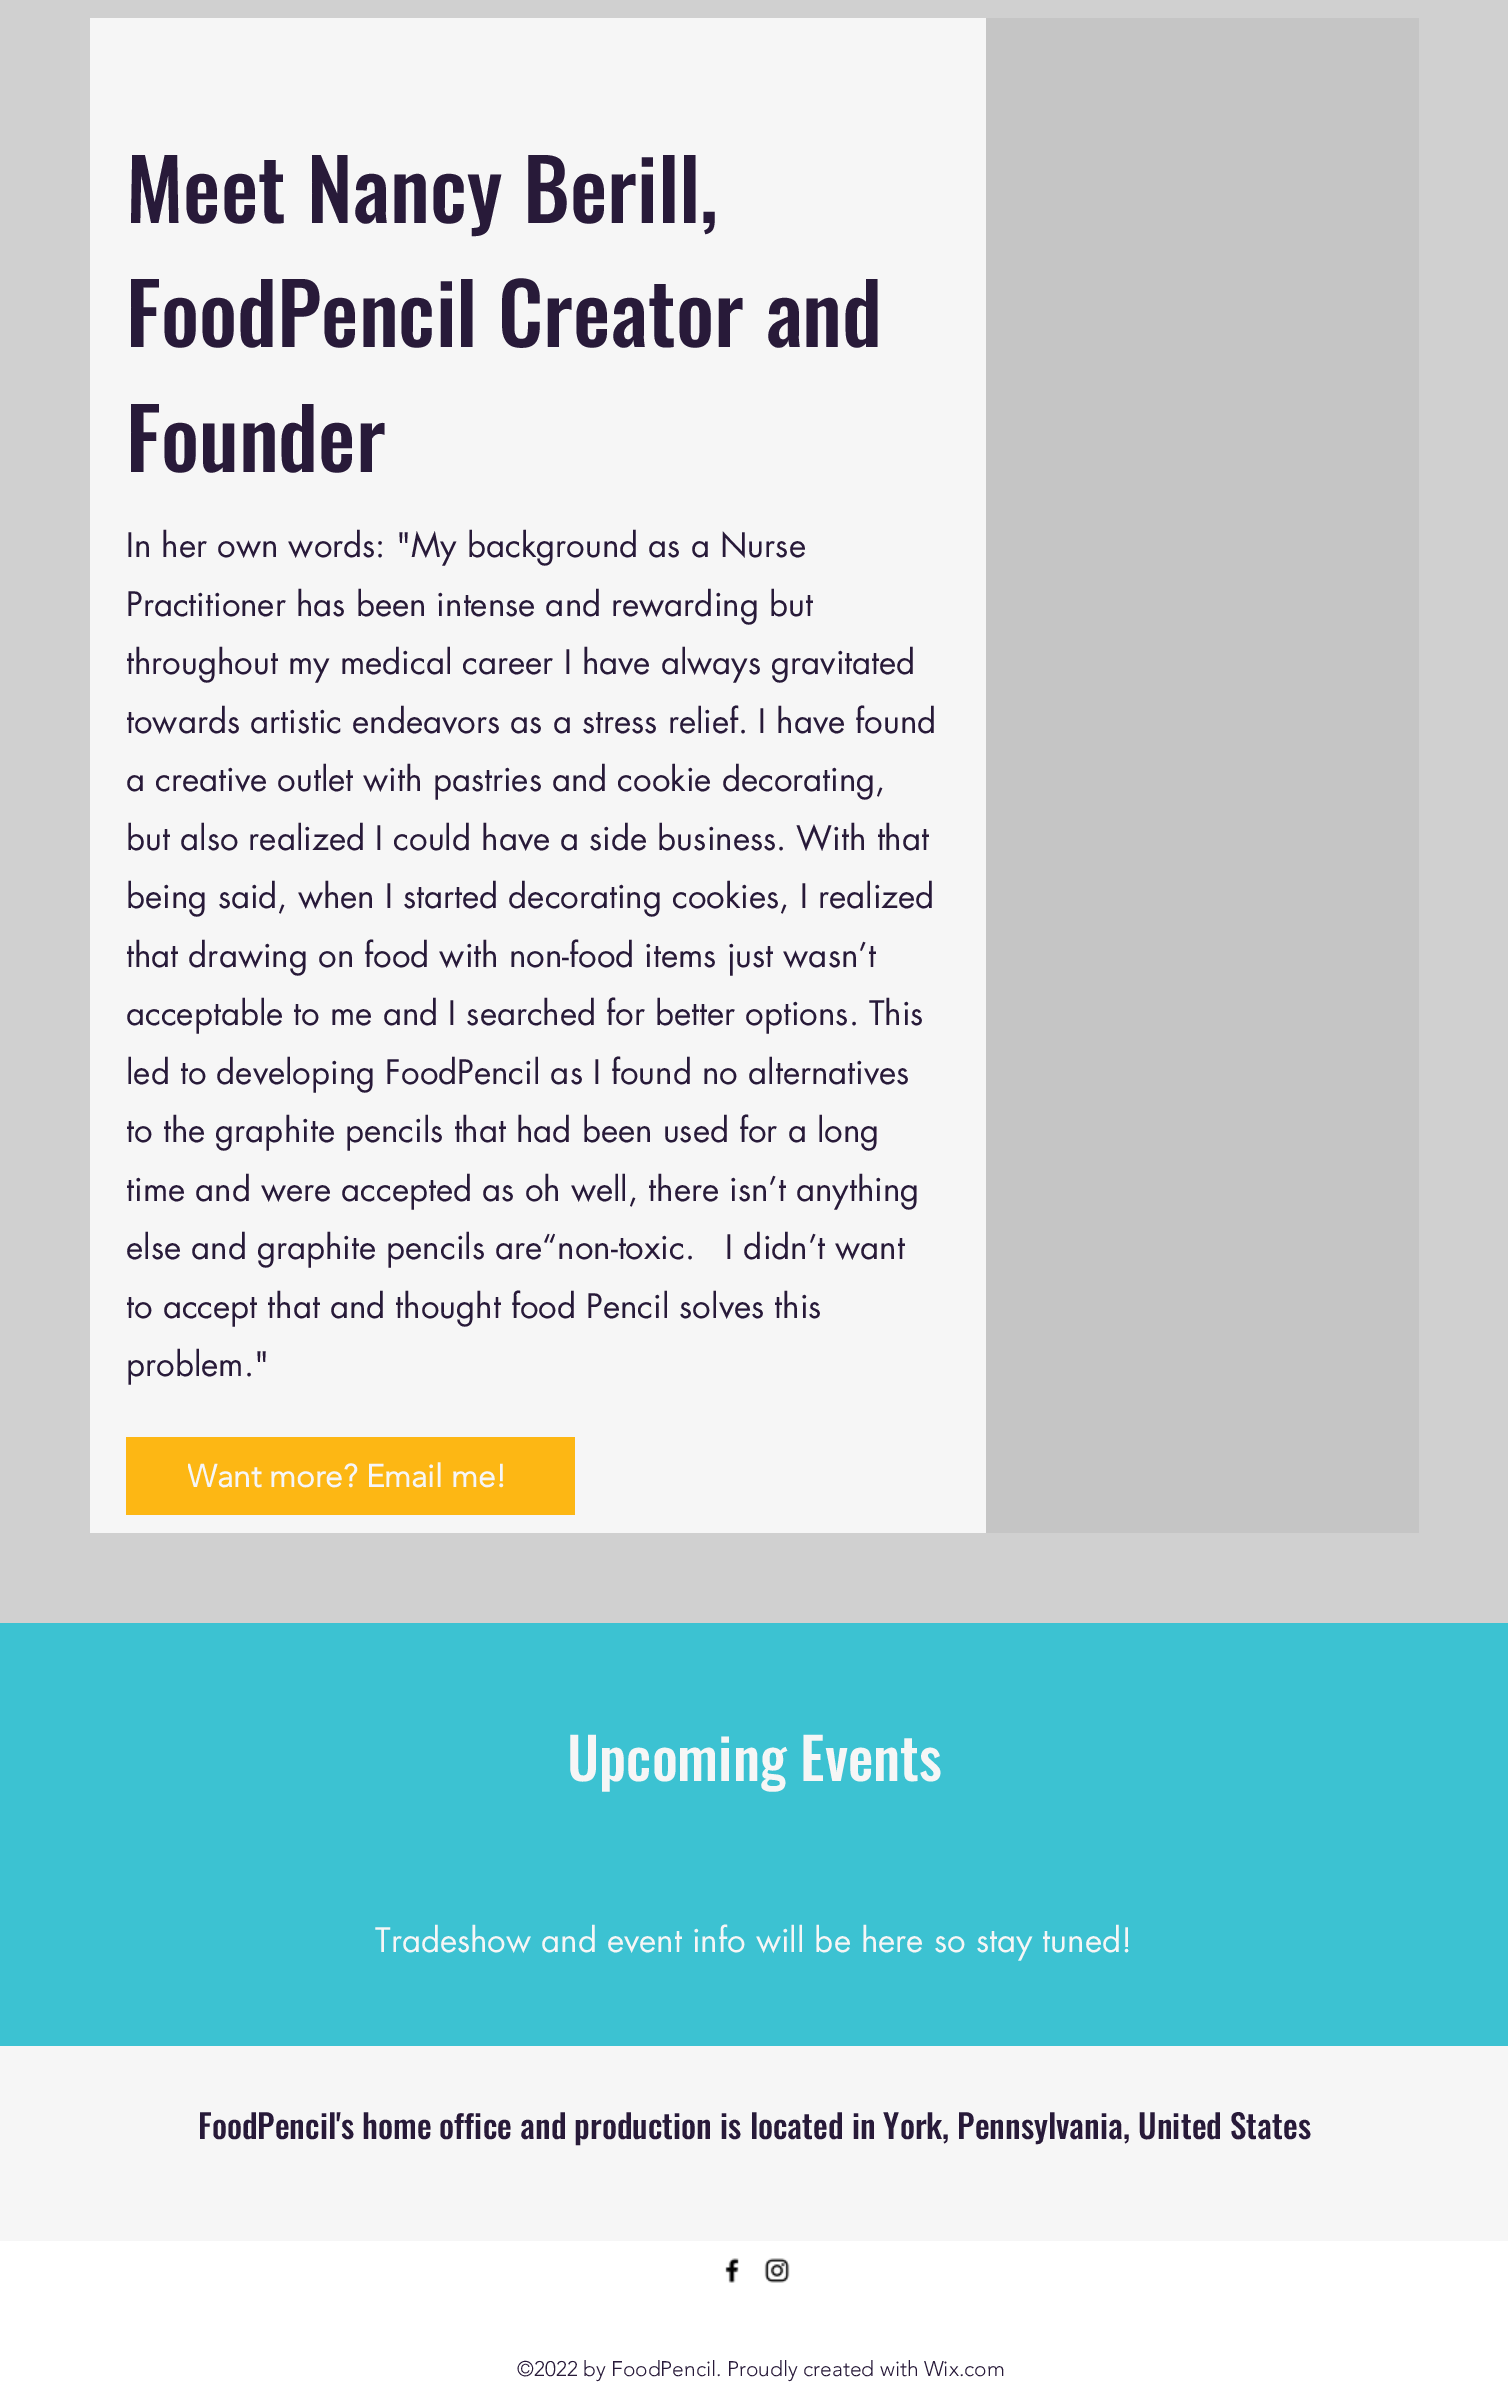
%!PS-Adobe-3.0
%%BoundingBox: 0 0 1508 2387
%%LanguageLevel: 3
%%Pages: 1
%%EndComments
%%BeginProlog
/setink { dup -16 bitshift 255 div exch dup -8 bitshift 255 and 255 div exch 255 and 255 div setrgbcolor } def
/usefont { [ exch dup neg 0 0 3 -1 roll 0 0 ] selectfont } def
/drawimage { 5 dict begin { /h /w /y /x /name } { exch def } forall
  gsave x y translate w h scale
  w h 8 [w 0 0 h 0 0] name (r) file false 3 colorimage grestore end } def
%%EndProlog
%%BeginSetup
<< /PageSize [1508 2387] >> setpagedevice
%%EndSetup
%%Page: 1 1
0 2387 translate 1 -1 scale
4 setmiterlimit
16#FFFFFF setink
0 0 1508 2387 rectfill
16#D0D0D0 setink
0 0 1508 1623 rectfill
16#F6F6F6 setink
90 18 896 1515 rectfill
/Oswald-Medium 84 usefont
16#281A39 setink
[
    [(Meet Nancy Berill,) 126 223]
    [(FoodPencil Creator and) 126 347]
    [(Founder) 126 472]
] { aload pop moveto show } forall
/futura-Regular 33 usefont
[
    [(In her own words: "My background as a Nurse) 126 557]
    [(Practitioner has been intense and rewarding but) 126 616]
    [(throughout my medical career I have always gravitated) 126 674]
    [(towards artistic endeavors as a stress relief. I have found) 126 733]
    [(a creative outlet with pastries and cookie decorating,) 126 791]
    [(but also realized I could have a side business. With that) 126 850]
    [(being said, when I started decorating cookies, I realized) 126 908]
    [(that drawing on food with non-food items just wasn’t) 126 967]
    [(acceptable to me and I searched for better options. This) 126 1025]
    [(led to developing FoodPencil as I found no alternatives) 126 1084]
    [(to the graphite pencils that had been used for a long) 126 1142]
    [(time and were accepted as oh well, there isn’t anything) 126 1201]
    [(else and graphite pencils are“non-toxic.   I didn’t want) 126 1259]
    [(to accept that and thought food Pencil solves this) 126 1318]
    [(problem.") 126 1376]
] { aload pop moveto show } forall
16#FDB714 setink
126 1437 449 78 rectfill
gsave
188 1457 319 37 rectclip
/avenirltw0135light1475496-Bold 31.5 usefont
16#F6F6F6 setink
187 1487 moveto (Want more? Email me!) show
grestore
16#C5C5C5 setink
986 18 433 1515 rectfill
16#3CC2D2 setink
0 1623 1508 423 rectfill
/Oswald-Medium 57 usefont
16#F6F6F6 setink
567 1781 moveto (Upcoming Events) show
/futura-Regular 33 usefont
375 1952 moveto (Tradeshow and event info will be here so stay tuned!) show
0 2046 1508 195 rectfill
/Oswald-Medium 33 usefont
16#281A39 setink
198 2139 moveto (FoodPencil's home office and production is located in York, Pennsylvania, United States) show
(img1.raw) 725 2258 14 25 drawimage
(img2.raw) 764 2258 26 25 drawimage
/avenirltw0135light1475496-Light 21 usefont
517 2376 moveto (©2022 by FoodPencil. Proudly created with Wix.com) show
showpage
%%EOF
